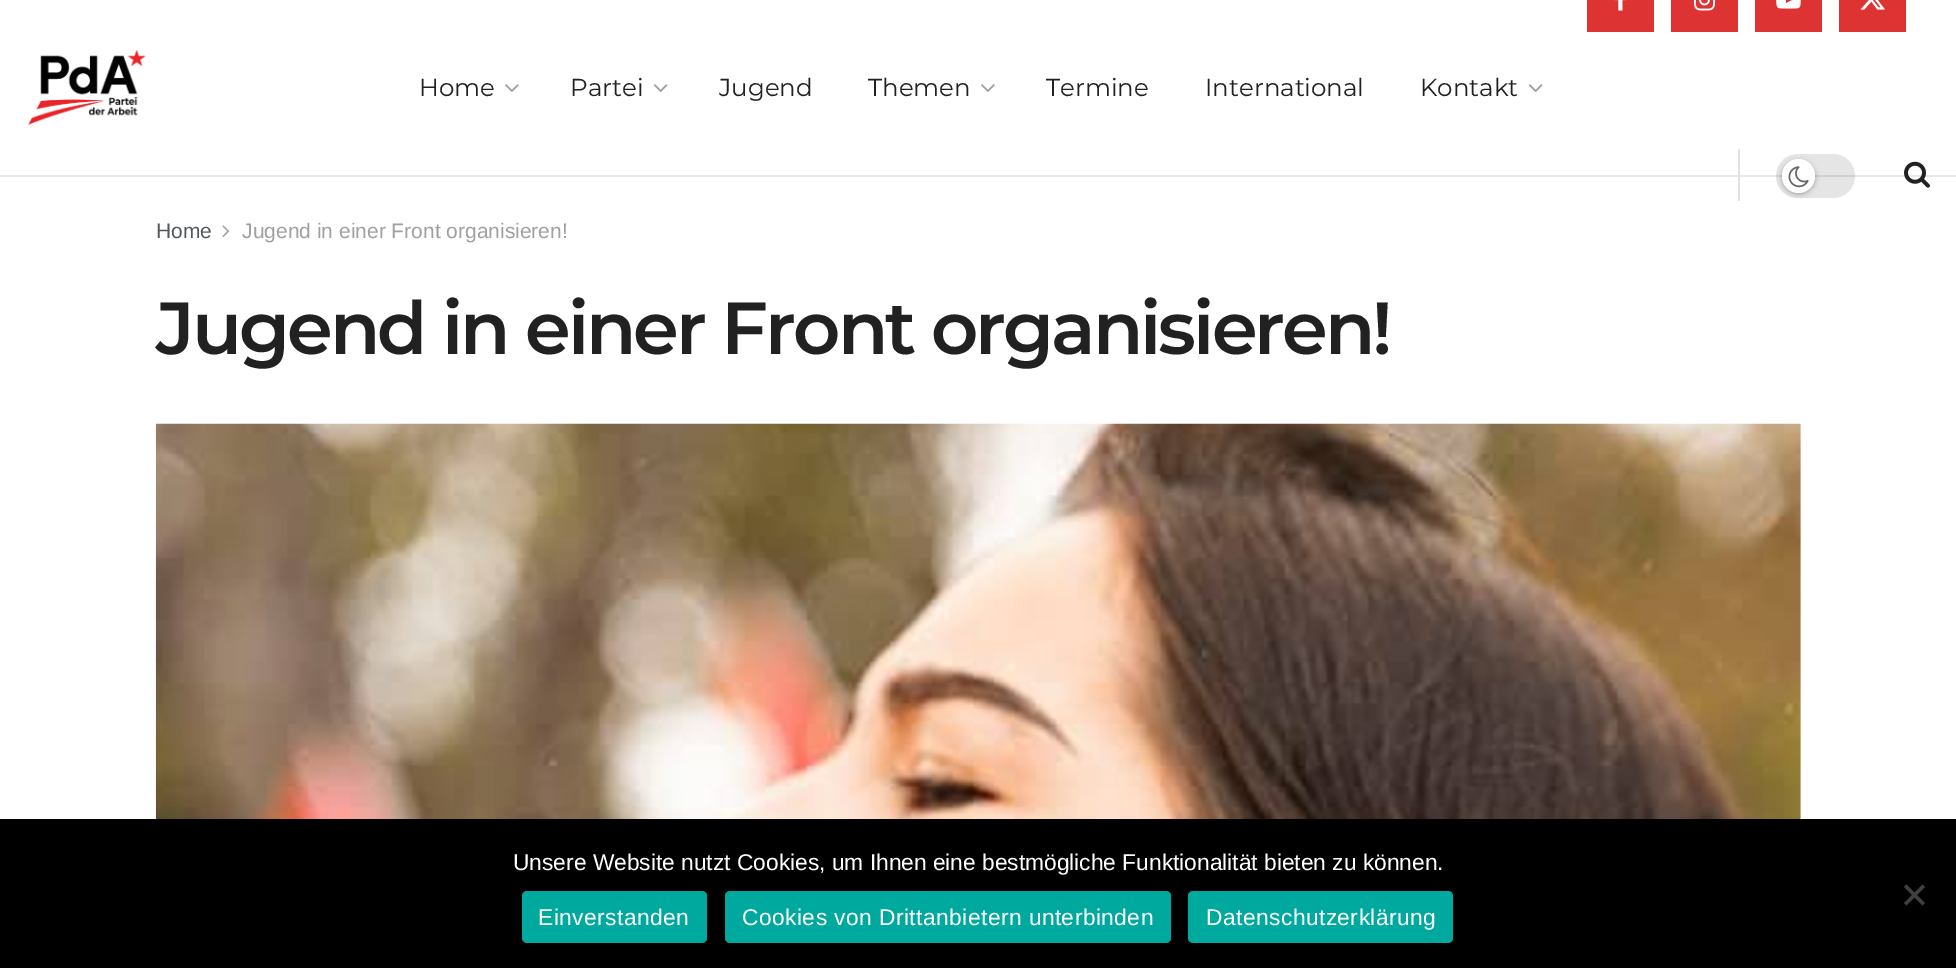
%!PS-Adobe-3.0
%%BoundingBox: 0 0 1956 968
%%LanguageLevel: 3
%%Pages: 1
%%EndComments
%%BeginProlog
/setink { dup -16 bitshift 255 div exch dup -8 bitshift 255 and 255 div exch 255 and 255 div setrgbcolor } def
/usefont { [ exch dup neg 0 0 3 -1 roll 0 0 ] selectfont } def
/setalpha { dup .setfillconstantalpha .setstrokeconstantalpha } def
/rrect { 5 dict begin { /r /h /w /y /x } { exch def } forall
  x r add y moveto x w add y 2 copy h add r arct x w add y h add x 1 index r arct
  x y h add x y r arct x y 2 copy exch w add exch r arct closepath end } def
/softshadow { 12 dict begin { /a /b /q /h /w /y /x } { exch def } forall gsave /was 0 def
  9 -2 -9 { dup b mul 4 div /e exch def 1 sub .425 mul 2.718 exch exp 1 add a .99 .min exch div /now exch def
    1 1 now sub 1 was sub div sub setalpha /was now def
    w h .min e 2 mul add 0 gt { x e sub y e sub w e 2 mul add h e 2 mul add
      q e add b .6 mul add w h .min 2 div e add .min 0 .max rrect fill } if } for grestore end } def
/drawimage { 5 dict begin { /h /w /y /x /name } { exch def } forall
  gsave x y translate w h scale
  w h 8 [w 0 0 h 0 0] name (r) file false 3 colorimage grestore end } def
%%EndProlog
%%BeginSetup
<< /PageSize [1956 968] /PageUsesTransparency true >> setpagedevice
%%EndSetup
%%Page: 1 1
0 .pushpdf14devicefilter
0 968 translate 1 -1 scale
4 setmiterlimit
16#FFFFFF setink
0 0 1956 968 rectfill
16#E8E8E8 setink
0 175 1956 2 rectfill
(img1.raw) 28 50 118 75 drawimage
/Montserrat-Regular 24.5 usefont
16#212121 setink
419 96 moveto (Home) show
(img2.raw) 505 84 14 8 drawimage
570 96 moveto (Partei) show
(img3.raw) 653 84 15 9 drawimage
719 96 moveto (Jugend) show
868 96 moveto (Themen) show
(img2.raw) 981 84 14 8 drawimage
[
    [(Termine) 1046 96]
    [(International) 1205 96]
    [(Kontakt) 1420 96]
] { aload pop moveto show } forall
(img3.raw) 1528 84 15 9 drawimage
16#DD3333 setink
1587 0 67 32 rectfill
(img4.raw) 1614 0 12 11 drawimage
1671 0 67 32 rectfill
(img5.raw) 1694 0 21 11 drawimage
1755 0 67 32 rectfill
(img6.raw) 1776 0 25 9 drawimage
1839 0 67 32 rectfill
(img7.raw) 1860 0 25 10 drawimage
16#E0E0E0 setink
1738 149 2 52 rectfill
0.1 setalpha
16#000000 setink
1776 154 79 44 22 rrect fill
1 setalpha
1782 161 33 33 16.5 2.5 0.3 softshadow
16#FFFFFF setink
1782 159 33 34 16.5 rrect fill
(img8.raw) 1788 166 21 22 drawimage
(img9.raw) 1904 161 26 27 drawimage
/LiberationSans-Regular 21 usefont
16#53585C setink
156 238 moveto (Home) show
(img10.raw) 222 225 8 12 drawimage
16#A0A0A0 setink
242 238 moveto (Jugend in einer Front organisieren!) show
/Montserrat-SemiBold 73.5 usefont
16#212121 setink
156 354 moveto -2.95 0 (Jugend in einer Front organisieren!) ashow
16#F7F7F7 setink
1800 424 1 395 rectfill
(img11.raw) 155 423 1646 396 drawimage
16#000000 setink
0 819 1956 149 rectfill
/LiberationSans-Regular 22.75 usefont
16#FFFFFF setink
513 870 moveto (Unsere Website nutzt Cookies, um Ihnen eine bestmögliche Funktionalität bieten zu können.) show
16#404040 setink
1922.5 884.5 moveto 1925 887 lineto 1906.5 905.5 lineto 1904 903 lineto closepath fill
1904 887 moveto 1906.5 884.5 lineto 1925 903 lineto 1922.5 905.5 lineto closepath fill
16#00A99D setink
522 891 185 52 5 rrect fill
16#FFFFFF setink
538 925 moveto 0.45 0 (Einverstanden) ashow
16#00A99D setink
725 891 446 52 5 rrect fill
16#FFFFFF setink
742 925 moveto 0.45 0 (Cookies von Drittanbietern unterbinden) ashow
16#00A99D setink
1188 891 265 52 5 rrect fill
16#FFFFFF setink
1206 925 moveto 0.45 0 (Datenschutzerklärung) ashow
.poppdf14devicefilter showpage
%%EOF
